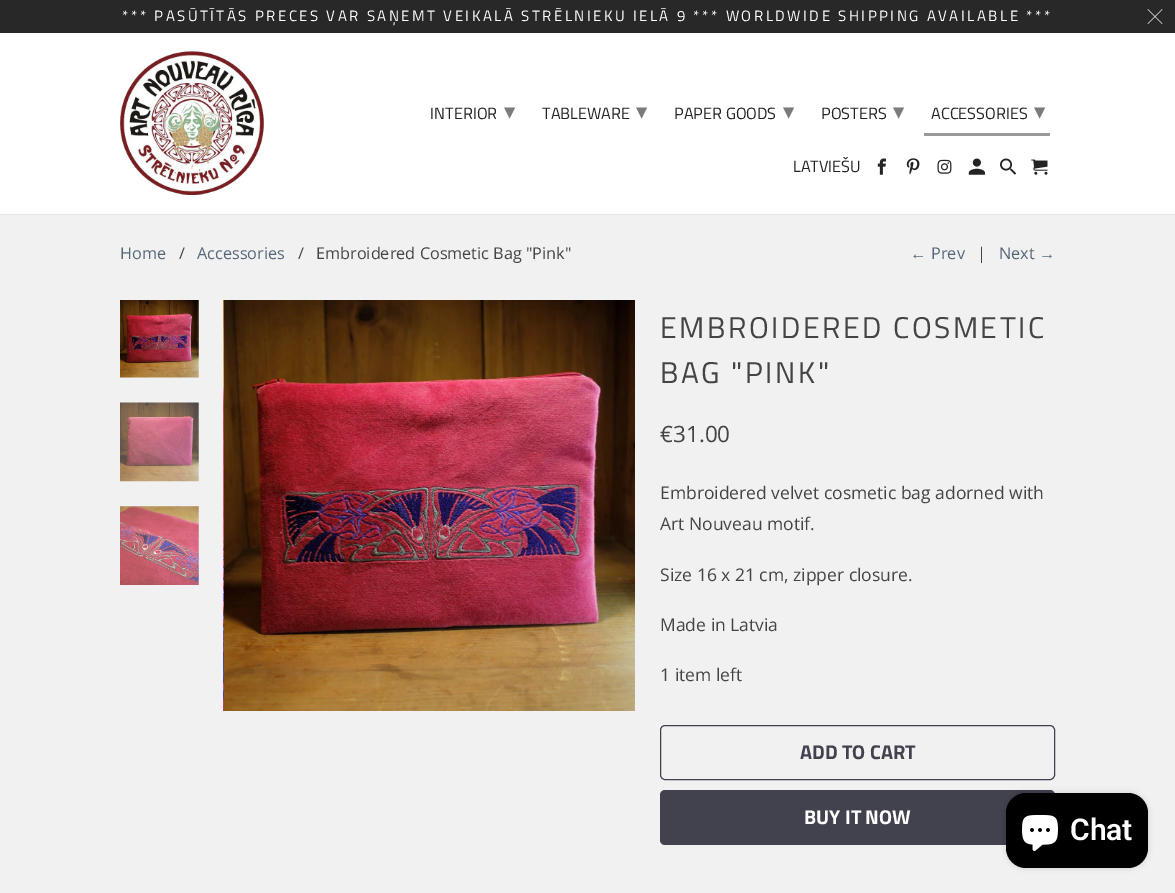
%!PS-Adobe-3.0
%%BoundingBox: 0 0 1175 893
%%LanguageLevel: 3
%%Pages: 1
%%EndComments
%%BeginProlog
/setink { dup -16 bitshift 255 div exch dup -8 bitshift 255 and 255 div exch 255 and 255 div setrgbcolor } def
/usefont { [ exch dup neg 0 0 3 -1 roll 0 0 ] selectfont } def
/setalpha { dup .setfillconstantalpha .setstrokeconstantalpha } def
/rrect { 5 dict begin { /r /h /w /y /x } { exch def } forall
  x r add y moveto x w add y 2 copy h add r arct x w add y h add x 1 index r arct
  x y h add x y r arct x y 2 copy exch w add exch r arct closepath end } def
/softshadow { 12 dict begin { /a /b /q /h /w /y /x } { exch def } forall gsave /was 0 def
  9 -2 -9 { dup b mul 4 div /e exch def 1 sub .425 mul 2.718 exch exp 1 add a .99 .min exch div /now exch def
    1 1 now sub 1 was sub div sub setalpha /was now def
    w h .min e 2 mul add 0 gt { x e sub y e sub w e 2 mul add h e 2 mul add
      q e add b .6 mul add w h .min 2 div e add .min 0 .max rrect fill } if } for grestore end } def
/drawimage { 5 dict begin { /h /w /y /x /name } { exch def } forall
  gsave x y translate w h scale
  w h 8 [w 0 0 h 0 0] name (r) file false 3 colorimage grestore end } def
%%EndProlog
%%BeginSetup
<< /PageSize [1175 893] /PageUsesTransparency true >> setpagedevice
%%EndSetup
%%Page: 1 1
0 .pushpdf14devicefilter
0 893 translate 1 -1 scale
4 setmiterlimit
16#F1F1F1 setink
0 0 1175 893 rectfill
[
    [0 33 1175 181 16#FFFFFF]
    [0 214 1175 1 16#E5E5E5]
    [0 0 1175 33 16#282828]
] { aload pop setink rectfill } forall
/TitilliumWeb-Regular 15 usefont
16#FFFFFF setink
122 21 moveto 2.5 0 (*** PASŪTĪTĀS PRECES VAR SAŅEMT VEIKALĀ STRĒLNIEKU IELĀ 9 *** WORLDWIDE SHIPPING AVAILABLE ***) ashow
(img1.raw) 1147 9 16 15 drawimage
(img2.raw) 120 51 144 144 drawimage
/TitilliumWeb-Regular 16.25 usefont
16#232323 setink
430 119 moveto (INTERIOR) show
/DejaVuSans-Regular 22.5 usefont
16#7B7B7B setink
504 119 moveto (▾) show
/TitilliumWeb-Regular 16.25 usefont
16#232323 setink
542 119 moveto (TABLEWARE) show
/DejaVuSans-Regular 22.5 usefont
16#7B7B7B setink
636 119 moveto (▾) show
/TitilliumWeb-Regular 16.25 usefont
16#232323 setink
674 119 moveto (PAPER GOODS) show
/DejaVuSans-Regular 22.5 usefont
16#7B7B7B setink
783 119 moveto (▾) show
/TitilliumWeb-Regular 16.25 usefont
16#232323 setink
821 119 moveto (POSTERS) show
/DejaVuSans-Regular 22.5 usefont
16#7B7B7B setink
893 119 moveto (▾) show
/TitilliumWeb-Regular 16.25 usefont
16#232323 setink
931 119 moveto (ACCESSORIES) show
/DejaVuSans-Regular 22.5 usefont
16#7B7B7B setink
1034 119 moveto (▾) show
16#999999 setink
924 133 126 3 rectfill
/TitilliumWeb-Regular 16.25 usefont
16#232323 setink
793 172 moveto (LATVIEŠU) show
(img3.raw) 877 158 9 17 drawimage
(img4.raw) 906 158 14 17 drawimage
(img5.raw) 937 159 15 15 drawimage
(img6.raw) 968 158 17 17 drawimage
(img7.raw) 1000 158 17 17 drawimage
(img8.raw) 1031 159 17 16 drawimage
/OpenSans-Regular 16.25 usefont
16#566679 setink
120 259 moveto (Home) show
16#444444 setink
179 259 moveto (/) show
16#566679 setink
197 259 moveto (Accessories) show
16#444444 setink
298 259 moveto (/) show
316 259 moveto (Embroidered Cosmetic Bag "Pink") show
/LiberationSans-Regular 16.25 usefont
16#566679 setink
910 259 moveto (←) show
/OpenSans-Regular 16.25 usefont
931 259 moveto (Prev) show
16#444444 setink
977 259 moveto (|) show
16#566679 setink
999 259 moveto (Next) show
/LiberationSans-Regular 16.25 usefont
1039 259 moveto (→) show
(img9.raw) 120 300 79 78 drawimage
(img10.raw) 120 402 79 80 drawimage
(img11.raw) 120 506 79 79 drawimage
(img12.raw) 223 300 1 411 drawimage
(img13.raw) 224 300 411 411 drawimage
/TitilliumWeb-Regular 30 usefont
16#444444 setink
660 338 moveto 2.5 0 (EMBROIDERED COSMETIC) ashow
660 383 moveto 2.5 0 (BAG "PINK") ashow
/OpenSans-Regular 22.5 usefont
660 442 moveto (€31.00) show
/OpenSans-Regular 17.5 usefont
[
    [(Embroidered velvet cosmetic bag adorned with) 660 499]
    [(Art Nouveau motif.) 660 530]
    [(Size 16 x 21 cm, zipper closure.) 660 581]
    [(Made in Latvia) 660 631]
    [(1 item left) 660 681]
] { aload pop moveto show } forall
16#42424F setink
660.5 725.5 394 54 4.5 rrect stroke
/TitilliumWeb-Bold 20 usefont
800 759 moveto (ADD TO CART) show
660 790 395 55 5 rrect fill
16#FFFFFF setink
804 824 moveto (BUY IT NOW) show
16#000000 setink
1006 793 142 75 20 3 0.15 softshadow
1006 793 142 75 20 rrect fill
(img14.raw) 1022 815 36 36 drawimage
/Roboto-SemiBold 30 usefont
16#FFFFFF setink
1070 840 moveto (Chat) show
.poppdf14devicefilter showpage
%%EOF
